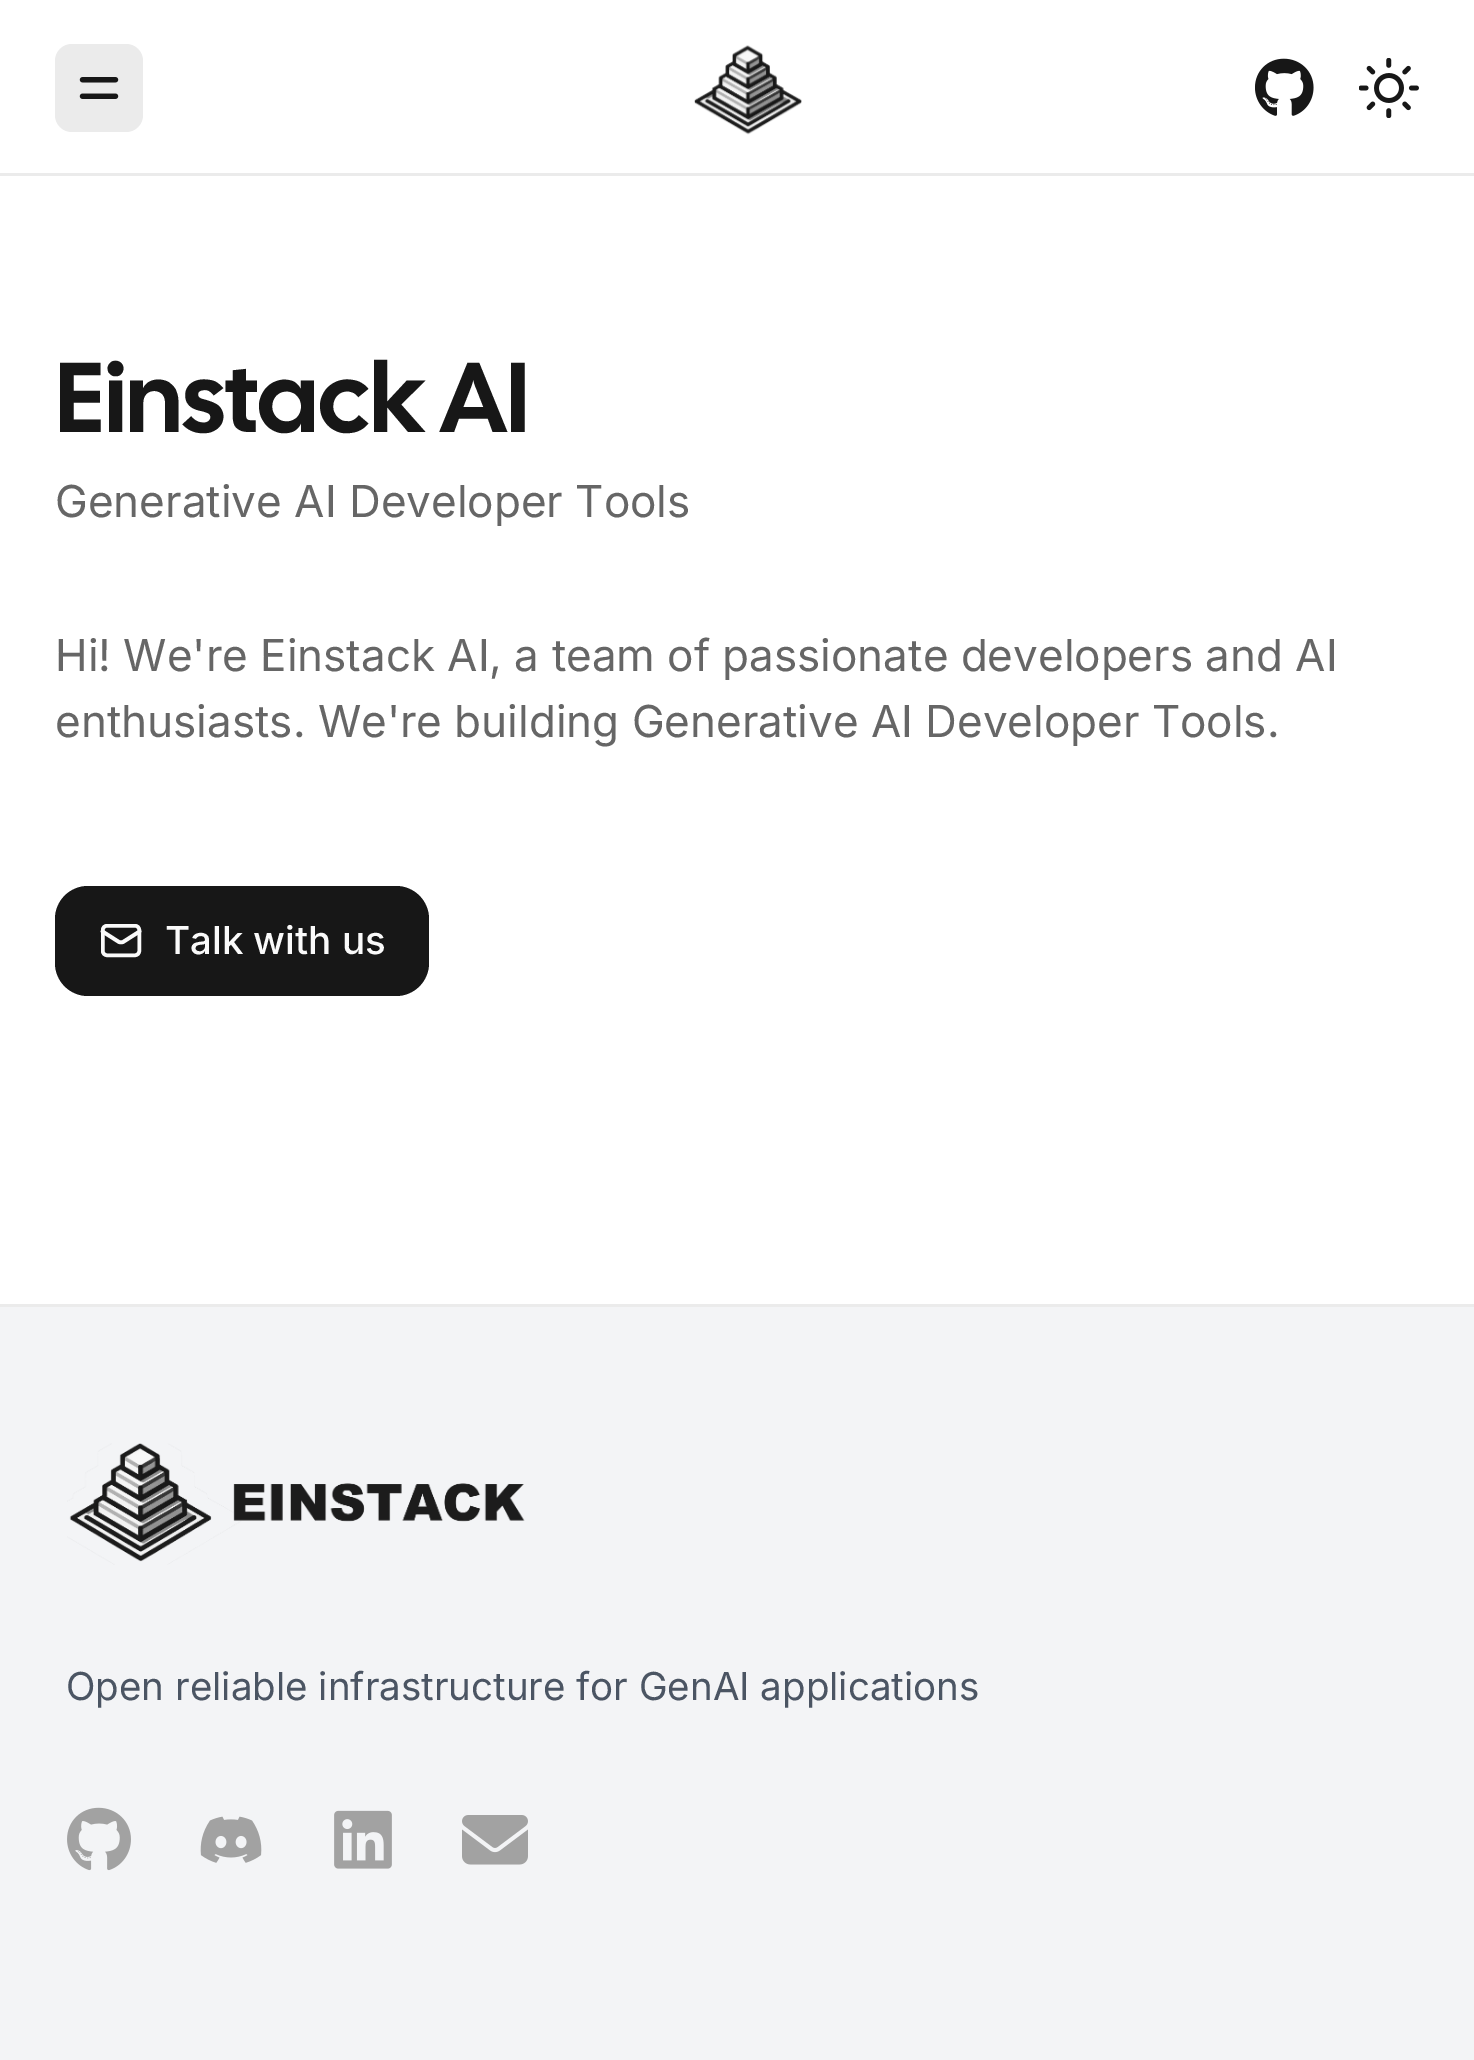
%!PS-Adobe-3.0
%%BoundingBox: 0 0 1474 2060
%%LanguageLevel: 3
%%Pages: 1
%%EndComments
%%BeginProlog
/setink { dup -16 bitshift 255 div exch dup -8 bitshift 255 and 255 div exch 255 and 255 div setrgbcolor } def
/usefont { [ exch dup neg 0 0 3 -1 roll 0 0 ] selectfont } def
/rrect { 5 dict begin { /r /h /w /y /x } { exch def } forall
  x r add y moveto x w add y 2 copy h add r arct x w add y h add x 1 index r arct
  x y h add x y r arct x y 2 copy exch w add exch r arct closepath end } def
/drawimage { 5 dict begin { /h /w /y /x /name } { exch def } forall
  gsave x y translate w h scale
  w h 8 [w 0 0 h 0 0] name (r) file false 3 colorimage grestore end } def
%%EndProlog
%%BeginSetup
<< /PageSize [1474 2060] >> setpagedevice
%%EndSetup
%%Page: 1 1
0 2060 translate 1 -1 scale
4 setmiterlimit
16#FFFFFF setink
0 0 1474 2060 rectfill
16#EBEBEB setink
0 173 1474 3 rectfill
55 44 88 88 17 rrect fill
(img1.raw) 79 77 40 22 drawimage
(img2.raw) 694 45 108 90 drawimage
(img3.raw) 1255 58 59 58 drawimage
(img4.raw) 1359 58 60 60 drawimage
/CalSans-SemiBold 99 usefont
16#171717 setink
55 432 moveto (Einstack AI) show
/Inter-Regular 44 usefont
16#666666 setink
[
    [(Generative AI Developer Tools) 55 517]
    [(Hi! We're Einstack AI, a team of passionate developers and AI) 55 671]
    [(enthusiasts. We're building Generative AI Developer Tools.) 55 737]
] { aload pop moveto show } forall
16#171717 setink
55 886 374 110 33 rrect fill
16#FAFAFA setink
3.5 setlinewidth
102.75 925.75 36.5 29.5 4.25 rrect stroke
3.7 setlinewidth
1 setlinecap
1 setlinejoin
139.5 931.5 moveto 123 942 lineto 121.5 942.5 120.5 942.5 119 942 curveto 102.5 931.5 lineto stroke
/Inter-Medium 38.5 usefont
165 954 moveto (Talk with us) show
16#F3F4F6 setink
0 1307 1474 753 rectfill
16#EBEBEB setink
0 1304 1474 3 rectfill
(img5.raw) 67 1443 458 122 drawimage
/Inter-Regular 38.5 usefont
16#4B5563 setink
66 1700 moveto (Open reliable infrastructure for GenAI applications) show
(img6.raw) 67 1807 64 64 drawimage
(img7.raw) 200 1816 62 47 drawimage
(img8.raw) 334 1810 58 59 drawimage
(img9.raw) 462 1815 66 50 drawimage
showpage
%%EOF
